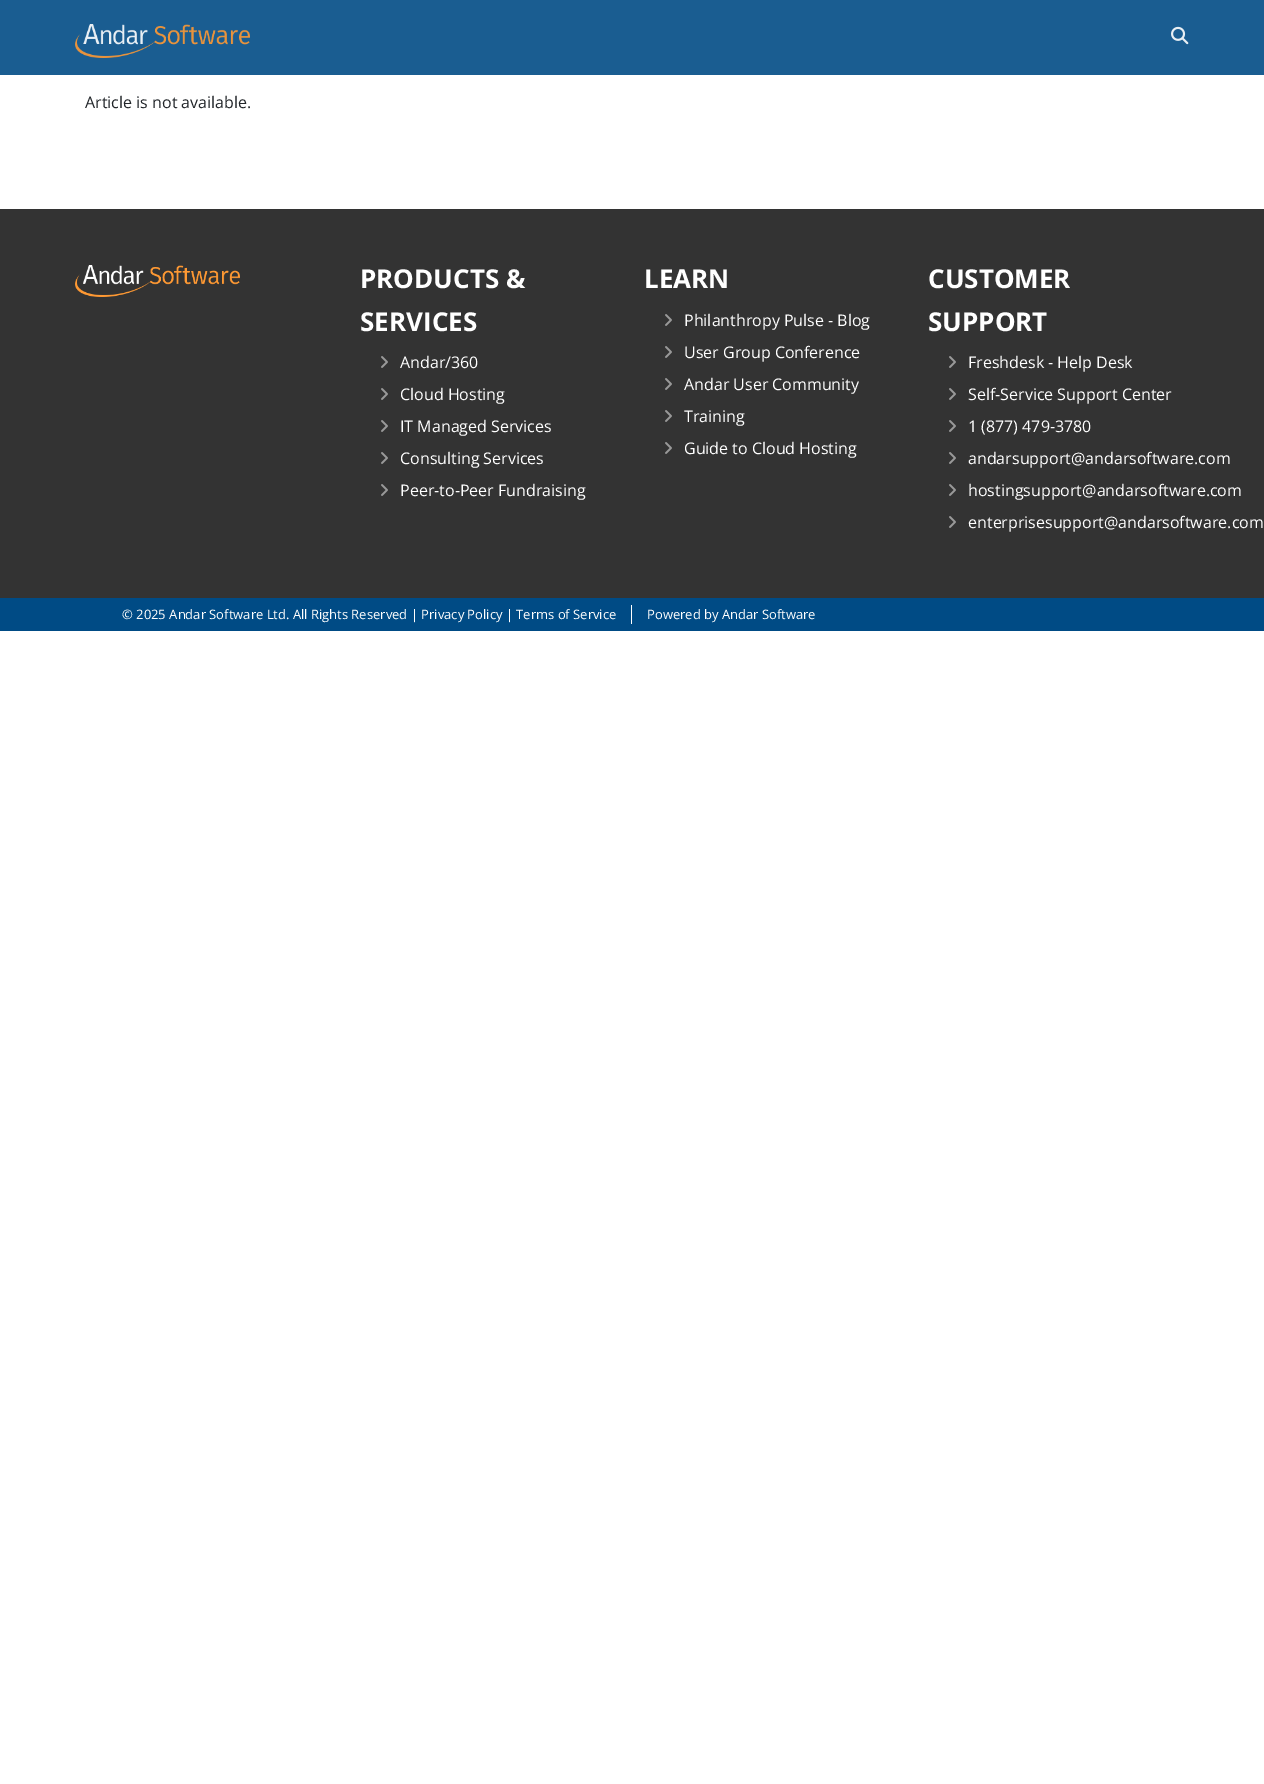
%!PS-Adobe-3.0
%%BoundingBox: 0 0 1264 1784
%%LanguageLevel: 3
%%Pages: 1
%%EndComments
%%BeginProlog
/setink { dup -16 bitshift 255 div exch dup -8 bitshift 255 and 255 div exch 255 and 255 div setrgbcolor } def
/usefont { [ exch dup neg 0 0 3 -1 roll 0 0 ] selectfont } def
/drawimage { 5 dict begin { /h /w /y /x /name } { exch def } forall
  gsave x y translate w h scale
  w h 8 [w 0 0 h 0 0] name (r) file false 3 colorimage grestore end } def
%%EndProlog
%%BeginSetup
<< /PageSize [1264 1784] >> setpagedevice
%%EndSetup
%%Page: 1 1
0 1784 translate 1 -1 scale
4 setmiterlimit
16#FFFFFF setink
0 0 1264 1784 rectfill
16#1A5D91 setink
0 0 1264 75 rectfill
(img1.raw) 75 24 175 34 drawimage
(img2.raw) 1171 26 18 19 drawimage
/OpenSans-Regular 16 usefont
16#212529 setink
85 108 moveto (Article is not available.) show
16#333333 setink
0 209 1264 389 rectfill
(img3.raw) 75 265 165 32 drawimage
/OpenSans-Bold 26 usefont
16#FFFFFF setink
360 288 moveto (PRODUCTS &) show
360 331 moveto (SERVICES) show
(img4.raw) 381 356 7 12 drawimage
/OpenSans-Regular 16 usefont
400 368 moveto (Andar/360) show
(img4.raw) 381 388 7 12 drawimage
400 400 moveto (Cloud Hosting) show
(img4.raw) 381 420 7 12 drawimage
400 432 moveto (IT Managed Services) show
(img4.raw) 381 452 7 12 drawimage
400 464 moveto (Consulting Services) show
(img4.raw) 381 484 7 12 drawimage
400 496 moveto (Peer-to-Peer Fundraising) show
/OpenSans-Bold 26 usefont
644 288 moveto (LEARN) show
(img4.raw) 665 314 7 12 drawimage
/OpenSans-Regular 16 usefont
684 326 moveto (Philanthropy Pulse - Blog) show
(img4.raw) 665 346 7 12 drawimage
684 358 moveto (User Group Conference) show
(img4.raw) 665 378 7 12 drawimage
684 390 moveto (Andar User Community) show
(img4.raw) 665 410 7 12 drawimage
684 422 moveto (Training) show
(img4.raw) 665 442 7 12 drawimage
684 454 moveto (Guide to Cloud Hosting) show
/OpenSans-Bold 26 usefont
928 288 moveto (CUSTOMER) show
928 331 moveto (SUPPORT) show
(img4.raw) 949 356 7 12 drawimage
/OpenSans-Regular 16 usefont
968 368 moveto (Freshdesk - Help Desk) show
(img4.raw) 949 388 7 12 drawimage
968 400 moveto (Self-Service Support Center) show
(img4.raw) 949 420 7 12 drawimage
968 432 moveto (1 \(877\) 479-3780) show
(img4.raw) 949 452 7 12 drawimage
968 464 moveto (andarsupport@andarsoftware.com) show
(img4.raw) 949 484 7 12 drawimage
968 496 moveto (hostingsupport@andarsoftware.com) show
(img4.raw) 949 516 7 12 drawimage
968 528 moveto (enterprisesupport@andarsoftware.com) show
16#004B85 setink
0 598 1264 33 rectfill
16#FFFFFF setink
631 605 1 19 rectfill
/OpenSans-Regular 13 usefont
122 619 moveto (© 2025 Andar Software Ltd. All Rights Reserved | Privacy Policy | Terms of Service) show
647 619 moveto (Powered by Andar Software) show
showpage
%%EOF
